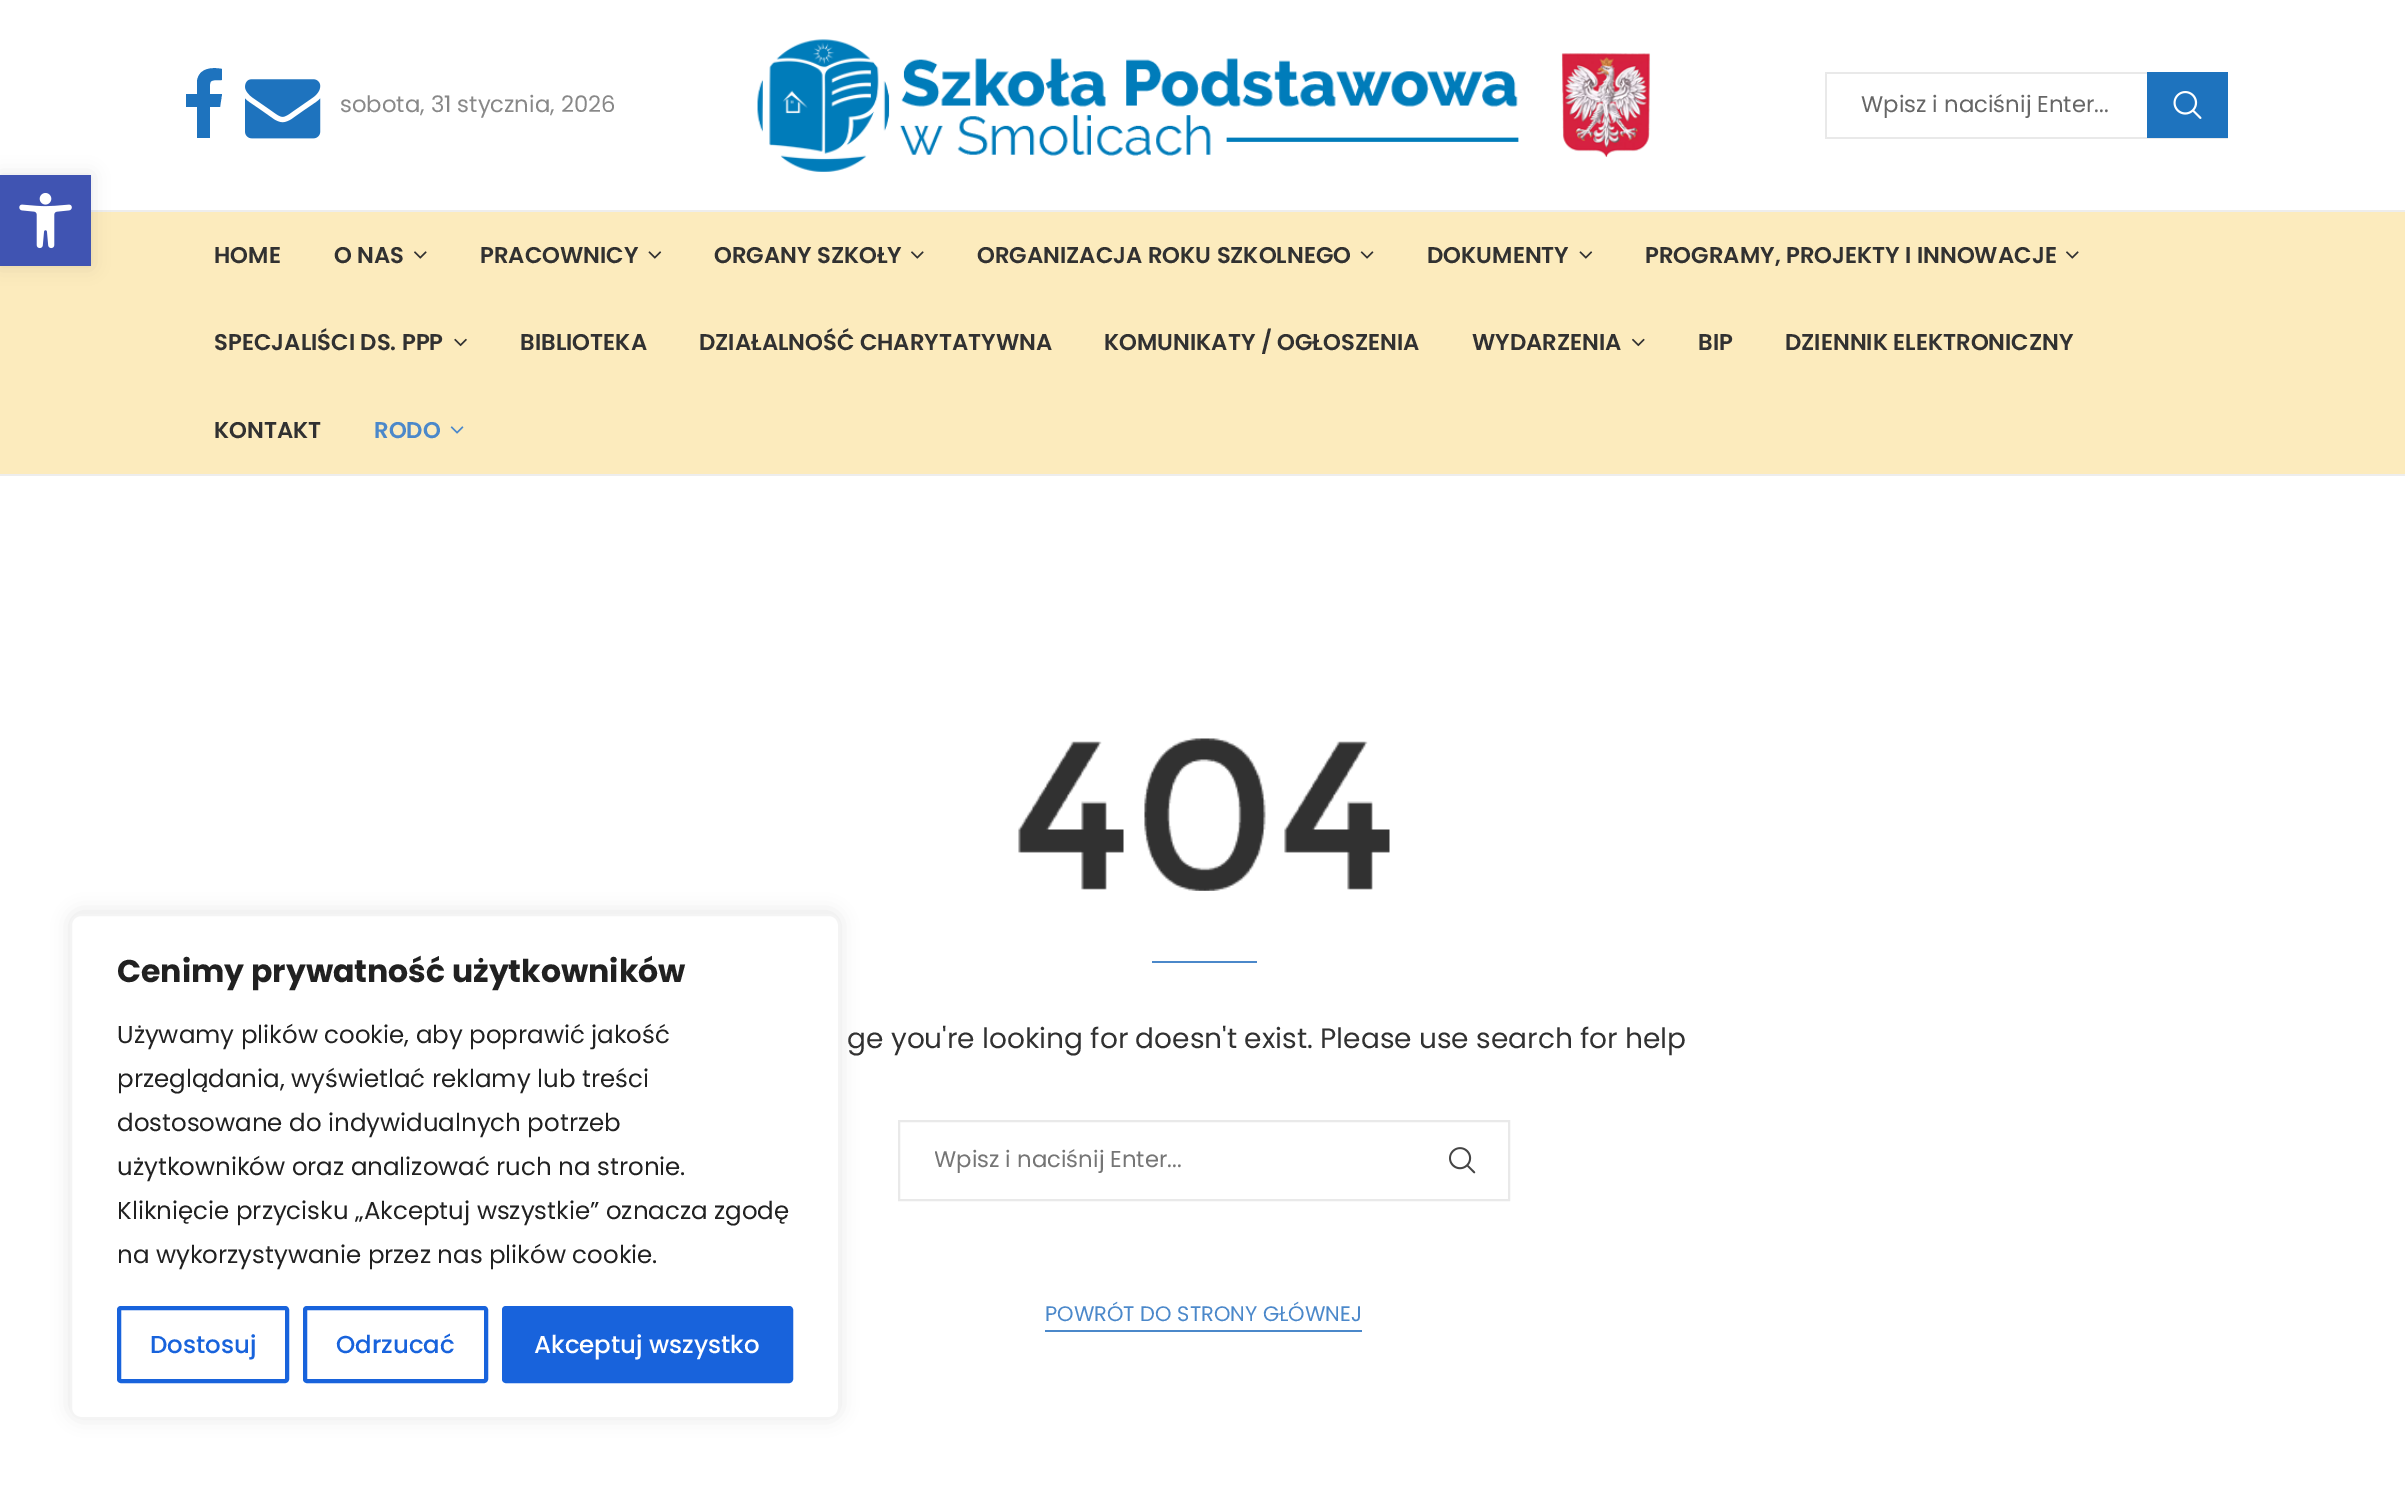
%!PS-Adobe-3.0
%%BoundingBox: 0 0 2405 1488
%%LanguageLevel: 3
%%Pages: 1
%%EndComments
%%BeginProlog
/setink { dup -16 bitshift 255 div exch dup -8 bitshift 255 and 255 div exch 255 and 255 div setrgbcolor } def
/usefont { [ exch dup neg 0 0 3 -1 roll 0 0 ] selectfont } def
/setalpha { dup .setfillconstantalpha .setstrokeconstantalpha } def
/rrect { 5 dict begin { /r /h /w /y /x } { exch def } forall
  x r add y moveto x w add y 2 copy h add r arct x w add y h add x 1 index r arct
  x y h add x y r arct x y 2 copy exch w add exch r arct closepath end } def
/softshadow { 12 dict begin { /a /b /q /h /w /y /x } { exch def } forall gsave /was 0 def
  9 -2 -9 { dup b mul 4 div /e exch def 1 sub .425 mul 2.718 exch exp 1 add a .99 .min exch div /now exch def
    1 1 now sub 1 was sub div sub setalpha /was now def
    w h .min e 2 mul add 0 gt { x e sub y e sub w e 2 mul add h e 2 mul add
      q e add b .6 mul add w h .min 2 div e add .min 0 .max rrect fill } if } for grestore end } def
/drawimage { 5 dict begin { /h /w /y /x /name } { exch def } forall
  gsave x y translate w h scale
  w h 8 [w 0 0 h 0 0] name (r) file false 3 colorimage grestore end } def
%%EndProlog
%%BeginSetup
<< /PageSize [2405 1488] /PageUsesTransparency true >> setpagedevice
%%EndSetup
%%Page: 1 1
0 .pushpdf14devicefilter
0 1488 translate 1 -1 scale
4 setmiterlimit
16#FFFFFF setink
0 0 2405 1488 rectfill
16#FCEBBD setink
0 212 2405 262 rectfill
16#EDEDED setink
91 210 2314 2 rectfill
16#000000 setink
0 175 91 91 0 9 0.1 softshadow
16#4054B2 setink
0 175 91 91 rectfill
(img1.raw) 19 193 53 56 drawimage
16#1E73BE setink
222 69 moveto 222 80 lineto 208 80 210 80 210 94 curveto 222 94 lineto 220 107 lineto 210 107 lineto 210 138 lineto 197 138 lineto 197 107 lineto 186 107 lineto 186 94 lineto 197 94 lineto 197 81 lineto 199 68 212 67 222 69 curveto closepath fill
(img2.raw) 245 79 76 60 drawimage
/Poppins-Regular 22.75 usefont
16#888888 setink
340 112 moveto (sobota, 31 stycznia, 2026) show
(img3.raw) 757 39 894 133 drawimage
[
    [1825 72 322 2 16#E9E9E9]
    [1825 137 403 2 16#E9E9E9]
    [1825 72 2 66 16#E9E9E9]
] { aload pop setink rectfill } forall
16#666666 setink
1861 112 moveto (Wpisz i naciśnij Enter...) show
16#1E73BE setink
2147 72 81 66 rectfill
(img4.raw) 2173 91 29 28 drawimage
16#EDEDED setink
0 474 2405 2 rectfill
/Poppins-SemiBold 22.75 usefont
16#313131 setink
214 263 moveto (HOME) show
334 263 moveto (O NAS) show
(img5.raw) 414 251 13 8 drawimage
480 263 moveto (PRACOWNICY) show
(img6.raw) 648 251 14 8 drawimage
714 263 moveto (ORGANY SZKOŁY) show
(img5.raw) 911 251 13 8 drawimage
977 263 moveto (ORGANIZACJA ROKU SZKOLNEGO) show
(img7.raw) 1360 251 14 8 drawimage
1427 263 moveto (DOKUMENTY) show
(img6.raw) 1579 251 14 8 drawimage
1645 263 moveto (PROGRAMY, PROJEKTY I INNOWACJE) show
(img5.raw) 2066 251 13 8 drawimage
214 350 moveto (SPECJALIŚCI DS. PPP) show
(img8.raw) 454 338 13 9 drawimage
[
    [(BIBLIOTEKA) 520 350]
    [(DZIAŁALNOŚĆ CHARYTATYWNA) 699 350]
    [(KOMUNIKATY / OGŁOSZENIA) 1104 350]
    [(WYDARZENIA) 1472 350]
] { aload pop moveto show } forall
(img9.raw) 1632 338 13 9 drawimage
[
    [(BIP) 1698 350]
    [(DZIENNIK ELEKTRONICZNY) 1785 350]
    [(KONTAKT) 214 438]
] { aload pop moveto show } forall
16#4B88CA setink
374 438 moveto (RODO) show
(img10.raw) 450 426 14 8 drawimage
(img11.raw) 1018 738 372 153 drawimage
1152 961 105 2 rectfill
/Poppins-Regular 28 usefont
16#313131 setink
847 1048 moveto (ge you're looking for doesn't exist. Please use search for help) show
16#E9E9E9 setink
2 setlinewidth
899 1121 610 79 rectstroke
gsave
935 1143 504 35 rectclip
/Poppins-Regular 22.75 usefont
16#757575 setink
934 1167 moveto (Wpisz i naciśnij Enter...) show
grestore
(img12.raw) 1449 1147 27 27 drawimage
/Poppins-Regular 21 usefont
16#4B88CA setink
1045 1321 moveto (POWRÓT DO STRONY GŁÓWNEJ) show
1045 1330 317 2 rectfill
16#ACABAB setink
70 912 770 506 11 9 0.3 softshadow
16#FFFFFF setink
71 915 768 503 10 rrect gsave fill grestore
16#F4F4F4 setink
stroke
/Poppins-Bold 31.5 usefont
16#212121 setink
117 982 moveto (Cenimy prywatność użytkowników) show
/Poppins-Regular 24.5 usefont
[
    [(Używamy plików cookie, aby poprawić jakość) 117 1043]
    [(przeglądania, wyświetlać reklamy lub treści) 117 1087]
    [(dostosowane do indywidualnych potrzeb) 117 1131]
    [(użytkowników oraz analizować ruch na stronie.) 117 1175]
    [(Kliknięcie przycisku „Akceptuj wszystkie” oznacza zgodę) 117 1219]
    [(na wykorzystywanie przez nas plików cookie.) 117 1263]
] { aload pop moveto show } forall
16#1863DC setink
4 setlinewidth
119 1308 168 73 2 rrect stroke
/Poppins-Medium 24.5 usefont
150 1353 moveto (Dostosuj) show
305 1308 181 73 2 rrect stroke
336 1353 moveto (Odrzucać) show
504 1308 287 73 2 rrect gsave fill grestore
stroke
16#FFFFFF setink
534 1353 moveto (Akceptuj wszystko) show
.poppdf14devicefilter showpage
%%EOF
